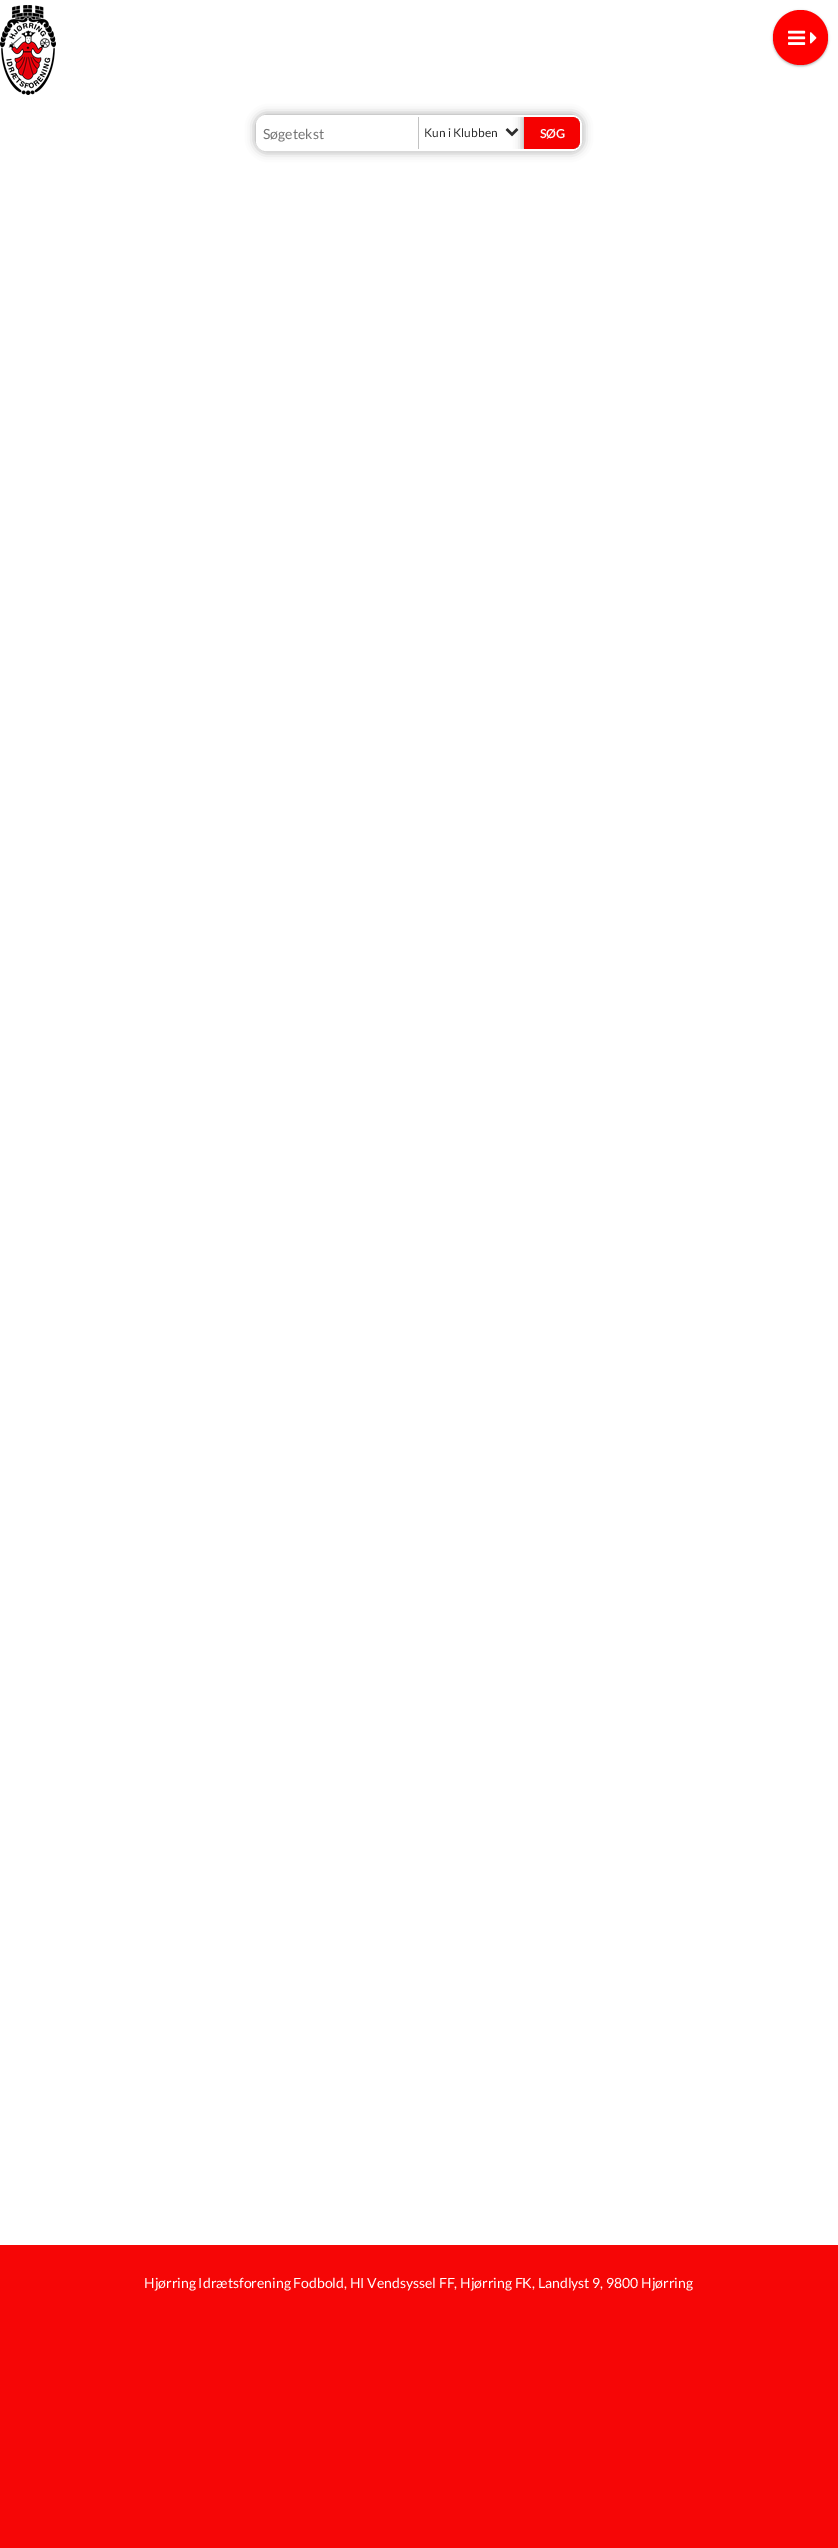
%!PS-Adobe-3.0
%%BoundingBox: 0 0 838 2548
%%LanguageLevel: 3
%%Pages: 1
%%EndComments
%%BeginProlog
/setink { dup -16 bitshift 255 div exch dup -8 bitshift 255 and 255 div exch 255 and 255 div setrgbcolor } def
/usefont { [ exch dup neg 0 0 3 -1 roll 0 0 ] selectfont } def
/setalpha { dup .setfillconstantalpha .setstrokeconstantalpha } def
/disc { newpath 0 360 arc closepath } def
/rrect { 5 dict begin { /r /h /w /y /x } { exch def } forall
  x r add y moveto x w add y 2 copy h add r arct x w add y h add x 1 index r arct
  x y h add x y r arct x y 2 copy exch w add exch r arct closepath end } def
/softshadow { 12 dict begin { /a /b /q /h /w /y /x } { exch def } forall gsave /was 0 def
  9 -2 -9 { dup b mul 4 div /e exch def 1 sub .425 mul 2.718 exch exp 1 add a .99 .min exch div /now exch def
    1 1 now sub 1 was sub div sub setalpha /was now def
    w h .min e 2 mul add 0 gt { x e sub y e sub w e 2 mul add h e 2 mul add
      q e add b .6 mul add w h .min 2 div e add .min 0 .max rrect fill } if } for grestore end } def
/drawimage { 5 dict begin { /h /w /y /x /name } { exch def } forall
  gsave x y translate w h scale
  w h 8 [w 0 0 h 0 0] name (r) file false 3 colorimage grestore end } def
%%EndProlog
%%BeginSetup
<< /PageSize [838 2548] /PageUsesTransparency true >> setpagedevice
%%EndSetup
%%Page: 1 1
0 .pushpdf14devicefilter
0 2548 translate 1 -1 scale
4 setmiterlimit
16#F60606 setink
0 0 838 2548 rectfill
16#FFFFFF setink
0 100 838 2145 rectfill
gsave
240 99 moveto 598 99 lineto 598 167 lineto 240 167 lineto closepath 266 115 moveto 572 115 lineto 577.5 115 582 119.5 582 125 curveto 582 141 lineto 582 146.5 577.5 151 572 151 curveto 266 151 lineto 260.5 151 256 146.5 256 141 curveto 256 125 lineto 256 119.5 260.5 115 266 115 curveto closepath eoclip newpath
16#303030 setink
256 115 326 36 10 5 0.5 softshadow
grestore
0 0 838 100 rectfill
(img1.raw) 0 5 56 90 drawimage
16#000000 setink
773 11 55 55 27.5 1 0.24 softshadow
773 11 55 55 27.5 1.5 0.12 softshadow
16#FF0000 setink
800.5 37.5 27.5 disc fill
(img2.raw) 788 30 18 15 drawimage
(img3.raw) 810 32 7 12 drawimage
16#FFFFFF setink
2 setlinewidth
257 116 324 34 9 rrect stroke
/Lato-Regular 14 usefont
16#757575 setink
263 139 moveto (Søgetekst) show
16#C2C2C2 setink
418 117 1 32 rectfill
/Lato-Regular 12 usefont
16#2C2C2C setink
424 137 moveto (Kun i Klubben) show
(img4.raw) 505 128 14 9 drawimage
gsave
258 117 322 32 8 rrect clip newpath
16#303030 setink
524 117 56 32 0 5 0.5 softshadow
grestore
16#F50101 setink
524 117 moveto 572 117 lineto 576.5 117 580 120.5 580 125 curveto 580 141 lineto 580 145.5 576.5 149 572 149 curveto 524 149 lineto closepath fill
/Lato-Bold 12 usefont
16#F9FAFA setink
540 138 moveto (SØG) show
/Lato-Regular 14 usefont
16#FFFFFF setink
144 2288 moveto (Hjørring Idrætsforening Fodbold, HI Vendsyssel FF, Hjørring FK, Landlyst 9, 9800 Hjørring) show
.poppdf14devicefilter showpage
%%EOF
